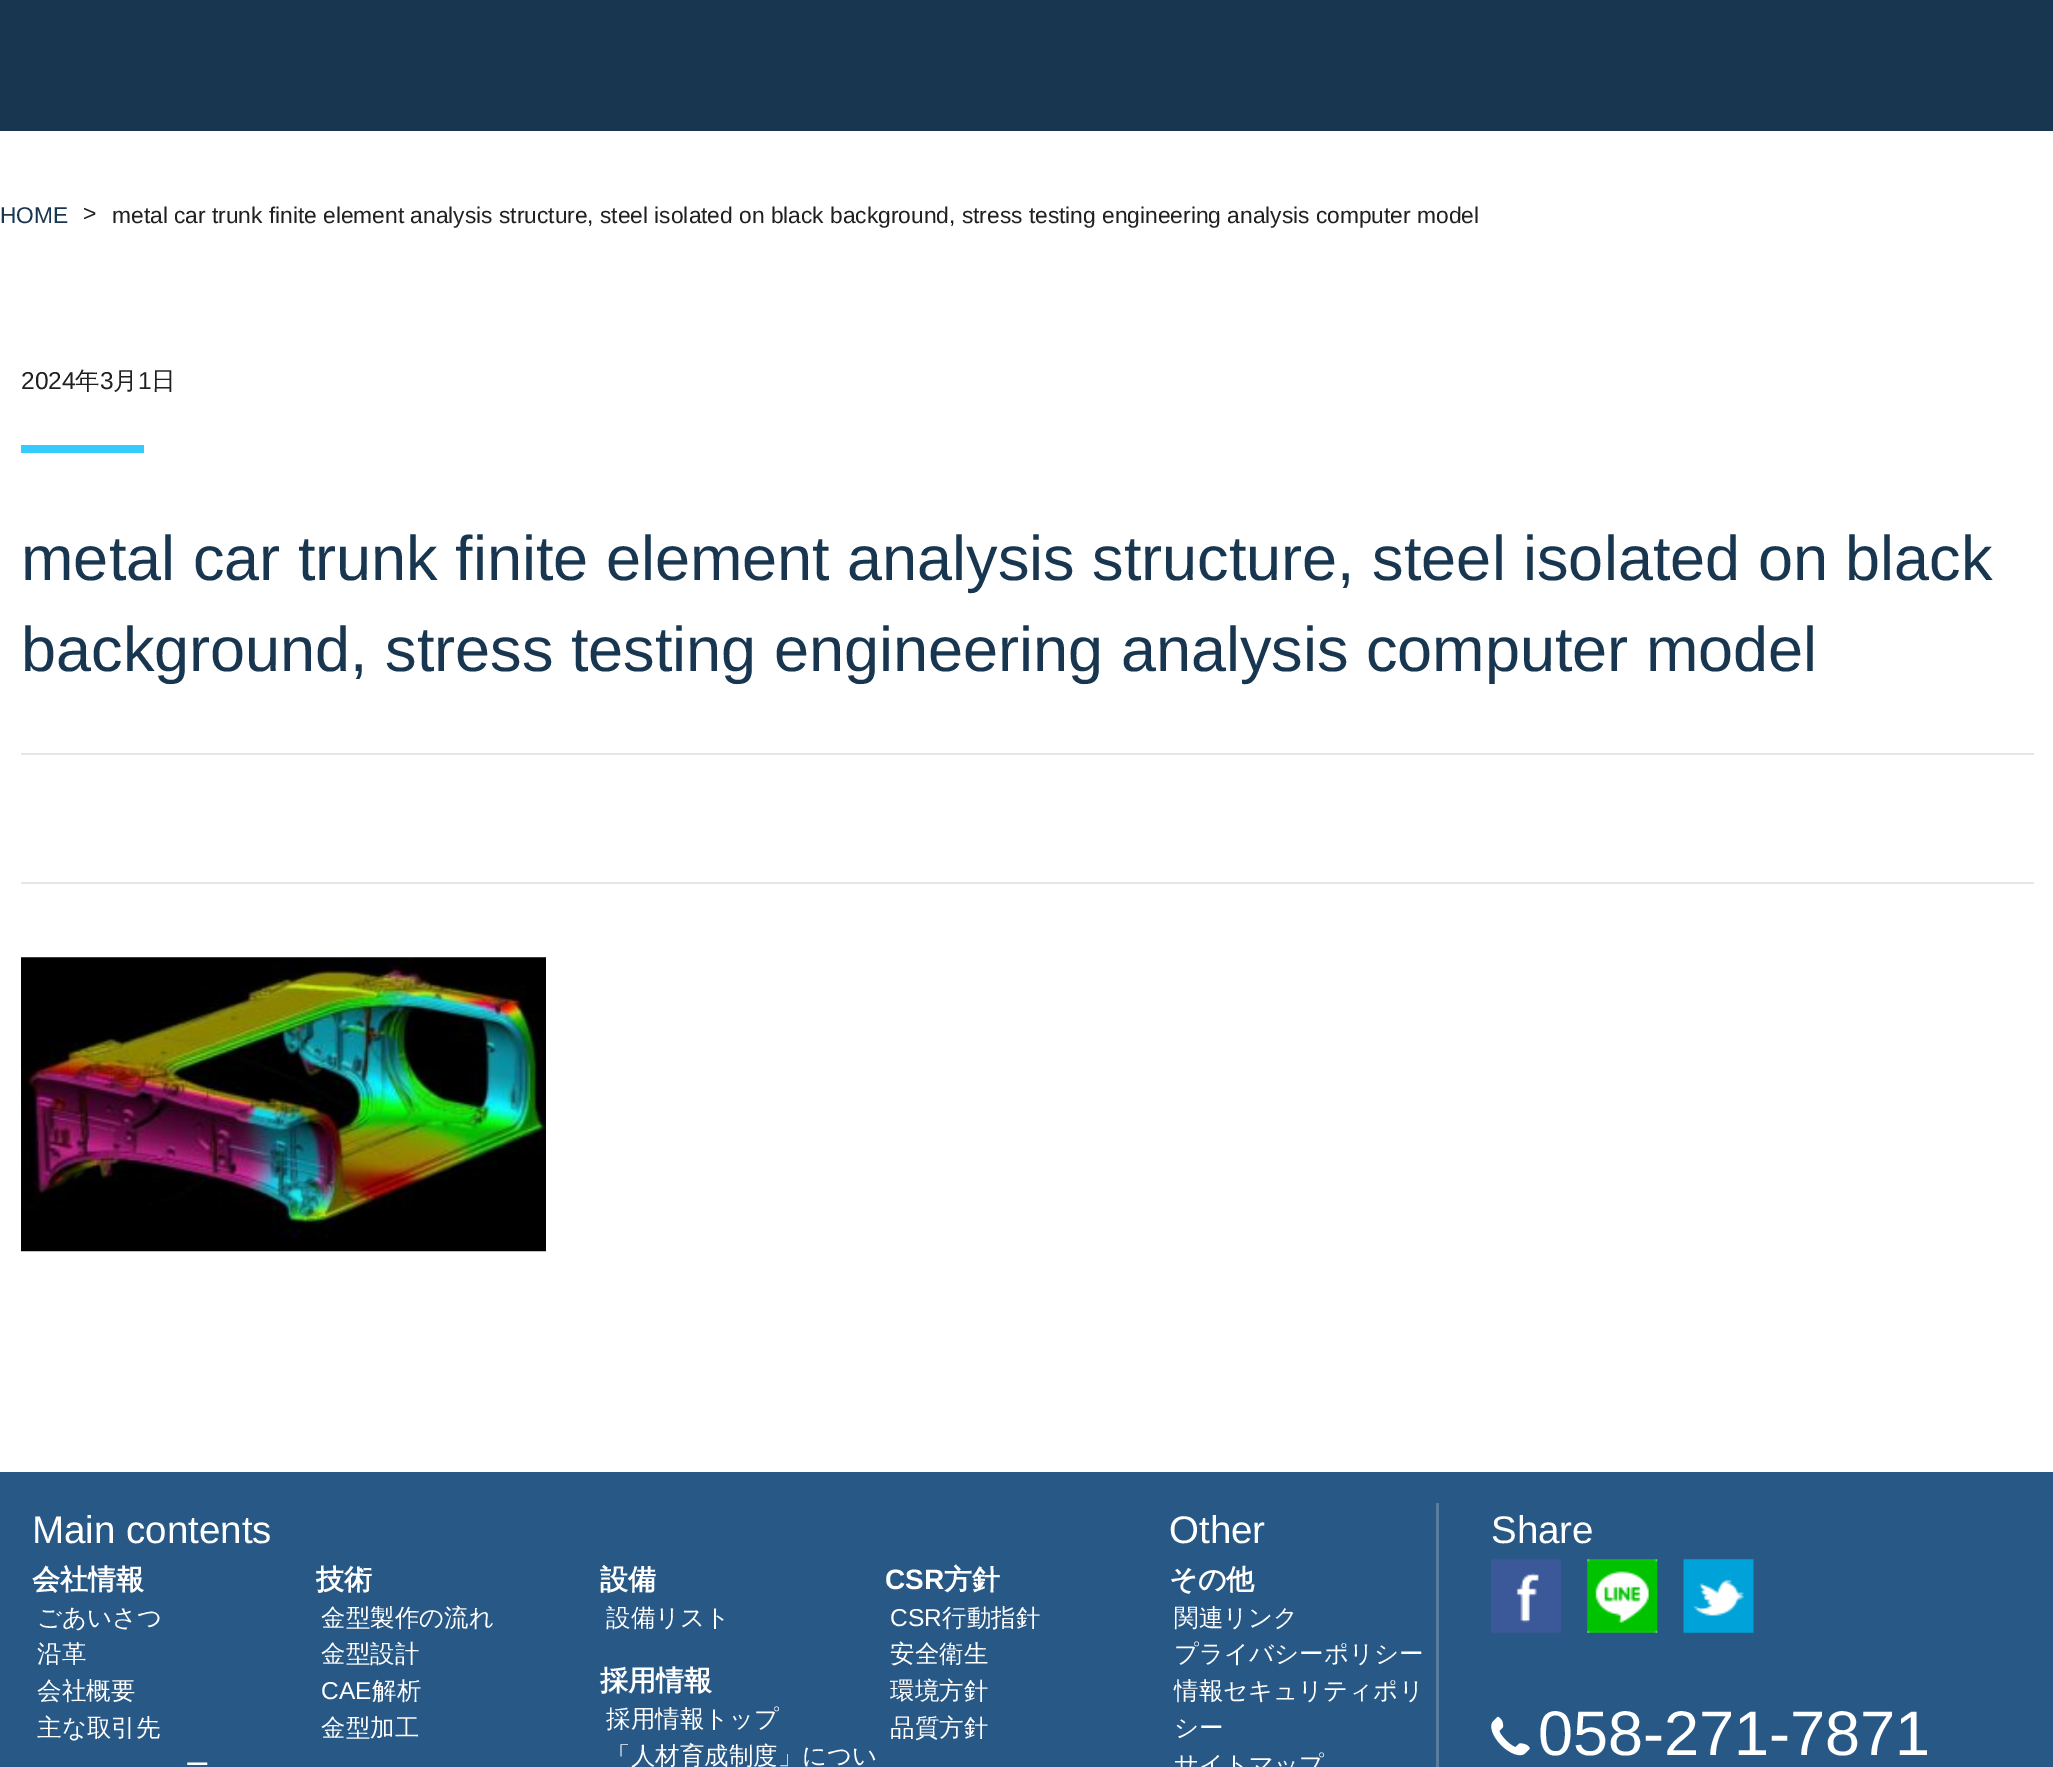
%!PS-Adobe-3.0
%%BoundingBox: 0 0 2053 1767
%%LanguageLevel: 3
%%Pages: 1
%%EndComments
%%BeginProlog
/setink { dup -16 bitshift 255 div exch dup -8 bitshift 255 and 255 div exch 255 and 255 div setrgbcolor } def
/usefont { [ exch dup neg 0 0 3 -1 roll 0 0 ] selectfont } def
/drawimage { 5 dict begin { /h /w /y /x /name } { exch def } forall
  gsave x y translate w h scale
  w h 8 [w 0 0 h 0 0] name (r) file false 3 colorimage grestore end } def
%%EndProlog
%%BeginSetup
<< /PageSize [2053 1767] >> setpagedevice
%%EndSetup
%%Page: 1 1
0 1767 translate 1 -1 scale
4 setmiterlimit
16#FFFFFF setink
0 0 2053 1767 rectfill
16#183650 setink
0 0 2053 131 rectfill
/LiberationSans-Regular 22.75 usefont
0 223 moveto (HOME) show
16#202020 setink
83 221 moveto (>) show
112 223 moveto (metal car trunk finite element analysis structure, steel isolated on black background, stress testing engineering analysis computer model) show
/LiberationSans-Regular 24.5 usefont
21 389 moveto (2024) show
/WenQuanYiZenHei-Medium 24.5 usefont
75 389 moveto (年) show
/LiberationSans-Regular 24.5 usefont
100 389 moveto (3) show
/WenQuanYiZenHei-Medium 24.5 usefont
113 389 moveto (月) show
/LiberationSans-Regular 24.5 usefont
138 389 moveto (1) show
/WenQuanYiZenHei-Medium 24.5 usefont
151 389 moveto (日) show
16#34CCFF setink
21 445 123 8 rectfill
/LiberationSans-Regular 63 usefont
16#183650 setink
21 580 moveto (metal car trunk finite element analysis structure, steel isolated on black) show
21 671 moveto (background, stress testing engineering analysis computer model) show
16#E6E6E6 setink
21 753 2013 2 rectfill
21 882 2013 2 rectfill
(img1.raw) 21 957 525 295 drawimage
16#285986 setink
0 1472 2053 295 rectfill
16#587D9F setink
1436 1503 3 264 rectfill
/LiberationSans-Regular 38.5 usefont
16#FFFFFF setink
32 1543 moveto (Main contents) show
/WenQuanYiZenHei-Bold 28 usefont
32 1589 moveto (会社情報) show
/WenQuanYiZenHei-Medium 24.5 usefont
[
    [(ごあいさつ) 37 1626]
    [(沿革) 37 1662]
    [(会社概要) 37 1699]
    [(主な取引先) 37 1736]
    [(ー) 185 1773]
] { aload pop moveto show } forall
/WenQuanYiZenHei-Bold 28 usefont
316 1589 moveto (技術) show
/WenQuanYiZenHei-Medium 24.5 usefont
321 1626 moveto (金型製作の流れ) show
321 1662 moveto (金型設計) show
/LiberationSans-Regular 24.5 usefont
321 1699 moveto (CAE) show
/WenQuanYiZenHei-Medium 24.5 usefont
372 1699 moveto (解析) show
321 1736 moveto (金型加工) show
/WenQuanYiZenHei-Bold 28 usefont
600 1589 moveto (設備) show
/WenQuanYiZenHei-Medium 24.5 usefont
606 1626 moveto (設備リスト) show
/WenQuanYiZenHei-Bold 28 usefont
600 1690 moveto (採用情報) show
/WenQuanYiZenHei-Medium 24.5 usefont
606 1727 moveto (採用情報トップ) show
606 1764 moveto (「人材育成制度」につい) show
/LiberationSans-Bold 28 usefont
885 1589 moveto (CSR) show
/WenQuanYiZenHei-Bold 28 usefont
944 1589 moveto (方針) show
/LiberationSans-Regular 24.5 usefont
890 1626 moveto (CSR) show
/WenQuanYiZenHei-Medium 24.5 usefont
[
    [(行動指針) 942 1626]
    [(安全衛生) 890 1662]
    [(環境方針) 890 1699]
    [(品質方針) 890 1736]
] { aload pop moveto show } forall
/LiberationSans-Regular 38.5 usefont
1169 1543 moveto (Other) show
/WenQuanYiZenHei-Bold 28 usefont
1169 1589 moveto (その他) show
/WenQuanYiZenHei-Medium 24.5 usefont
[
    [(関連リンク) 1174 1626]
    [(プライバシーポリシー) 1174 1662]
    [(情報セキュリティポリ) 1174 1699]
    [(シー) 1174 1736]
    [(サイトマップ) 1174 1773]
] { aload pop moveto show } forall
/LiberationSans-Regular 38.5 usefont
1491 1543 moveto (Share) show
(img2.raw) 1491 1559 70 74 drawimage
(img3.raw) 1587 1559 71 74 drawimage
(img4.raw) 1683 1559 71 74 drawimage
(img5.raw) 1491 1716 39 40 drawimage
/LiberationSans-Regular 63 usefont
1538 1755 moveto (058-271-7871) show
showpage
%%EOF
